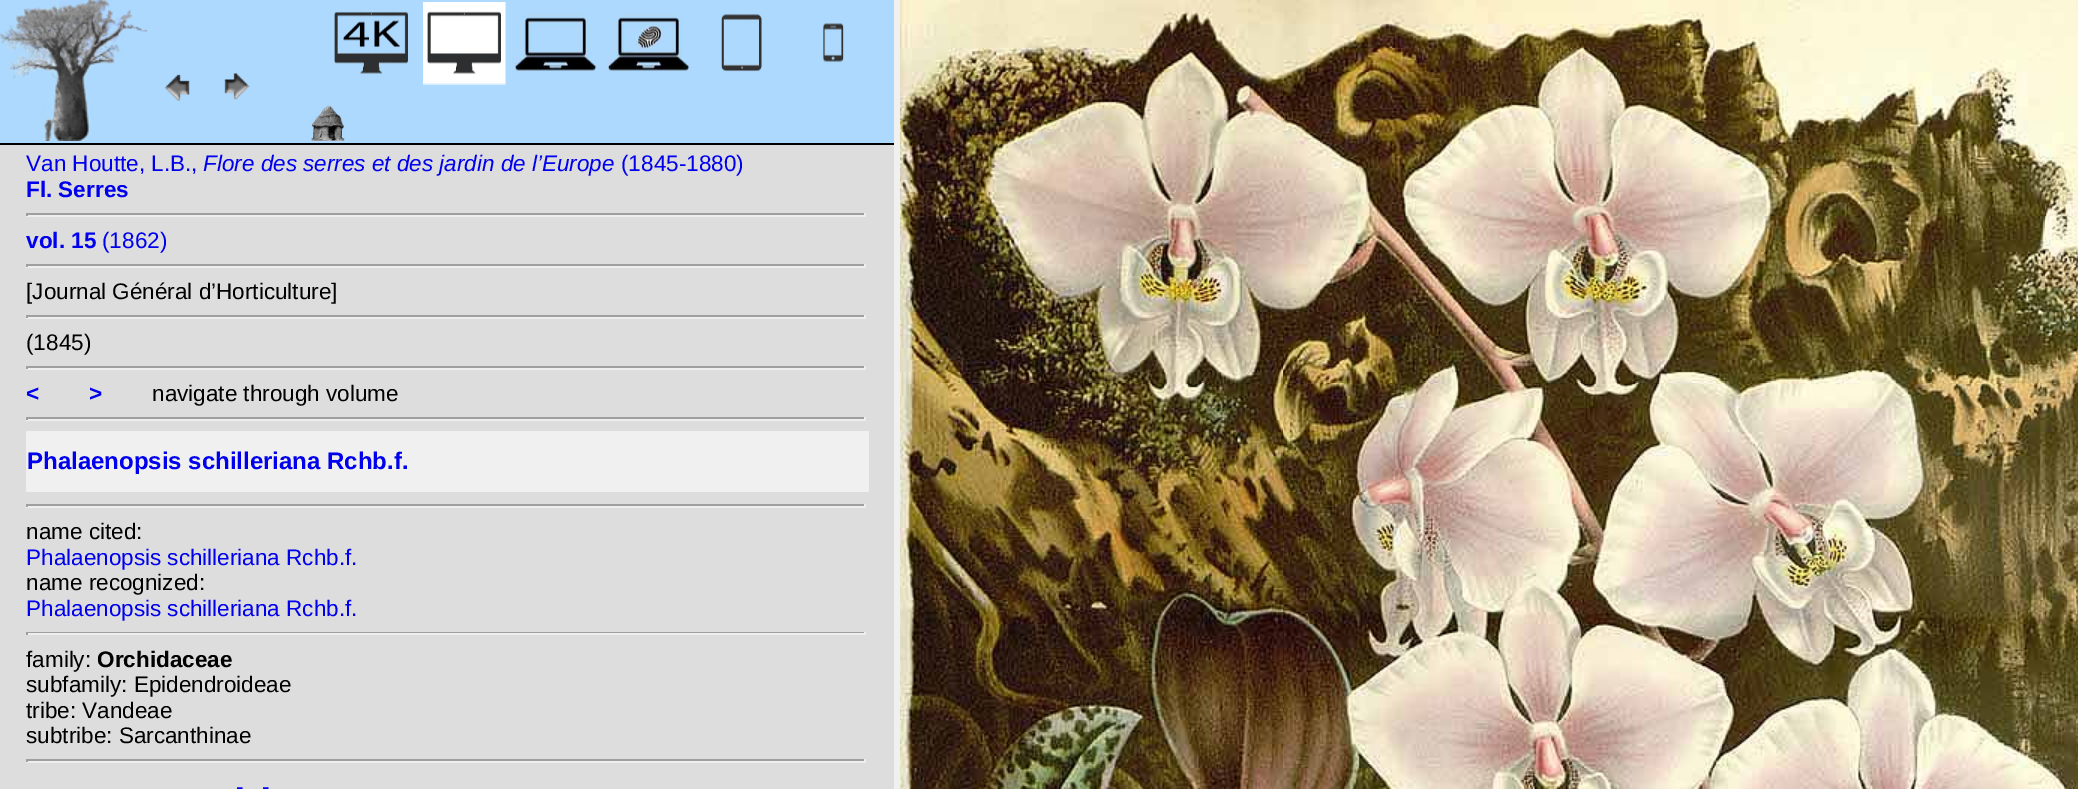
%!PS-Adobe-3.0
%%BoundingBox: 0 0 2078 789
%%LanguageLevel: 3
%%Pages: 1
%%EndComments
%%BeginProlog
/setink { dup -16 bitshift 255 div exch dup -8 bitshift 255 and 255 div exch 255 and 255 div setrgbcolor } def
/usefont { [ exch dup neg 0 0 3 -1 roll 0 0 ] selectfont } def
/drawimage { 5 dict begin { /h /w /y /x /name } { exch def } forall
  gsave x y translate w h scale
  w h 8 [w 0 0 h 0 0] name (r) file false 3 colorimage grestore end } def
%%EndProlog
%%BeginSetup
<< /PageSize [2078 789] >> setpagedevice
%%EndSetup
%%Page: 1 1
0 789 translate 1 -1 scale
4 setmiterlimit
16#F0F0F0 setink
0 0 2078 789 rectfill
[
    [0 145 894 644 16#DDDDDD]
    [0 0 894 143 16#ADD9FE]
    [0 143 894 2 16#000000]
] { aload pop setink rectfill } forall
(img1.raw) 0 0 150 141 drawimage
(img2.raw) 164 74 26 27 drawimage
(img3.raw) 224 73 26 27 drawimage
(img4.raw) 333 11 75 63 drawimage
(img5.raw) 423 2 83 83 drawimage
(img6.raw) 514 14 83 57 drawimage
(img7.raw) 607 14 83 57 drawimage
(img8.raw) 721 14 41 58 drawimage
(img9.raw) 823 23 21 40 drawimage
(img10.raw) 311 105 34 36 drawimage
/LiberationSans-Regular 22.5 usefont
16#0000EE setink
26 171 moveto (Van Houtte, L.B.,) show
/LiberationSans-Italic 22.5 usefont
203 171 moveto (Flore des serres et des jardin de l’Europe) show
/LiberationSans-Regular 22.5 usefont
621 171 moveto (\(1845-1880\)) show
/LiberationSans-Bold 22.5 usefont
26 197 moveto (Fl. Serres) show
[
    [26 213 840 2 16#9F9F9F]
    [864 213 2 3 16#EEEEEE]
    [26 215 840 2 16#EEEEEE]
    [26 213 2 3 16#9F9F9F]
] { aload pop setink rectfill } forall
16#0000EE setink
26 248 moveto (vol. 15) show
/LiberationSans-Regular 22.5 usefont
102 248 moveto (\(1862\)) show
[
    [26 264 840 2 16#9F9F9F]
    [864 264 2 3 16#EEEEEE]
    [26 266 840 2 16#EEEEEE]
    [26 264 2 3 16#9F9F9F]
] { aload pop setink rectfill } forall
16#000000 setink
26 299 moveto ([Journal Général d’Horticulture]) show
[
    [26 315 840 2 16#9F9F9F]
    [864 315 2 3 16#EEEEEE]
    [26 317 840 2 16#EEEEEE]
    [26 315 2 3 16#9F9F9F]
] { aload pop setink rectfill } forall
16#000000 setink
26 350 moveto (\(1845\)) show
[
    [26 366 840 2 16#9F9F9F]
    [864 366 2 3 16#EEEEEE]
    [26 368 840 2 16#EEEEEE]
    [26 366 2 3 16#9F9F9F]
] { aload pop setink rectfill } forall
/LiberationSans-Bold 22.5 usefont
16#0000EE setink
26 401 moveto (<) show
89 401 moveto (>) show
/LiberationSans-Regular 22.5 usefont
16#000000 setink
152 401 moveto (navigate through volume) show
[
    [26 417 840 2 16#9F9F9F]
    [864 417 2 3 16#EEEEEE]
    [26 419 840 2 16#EEEEEE]
    [26 417 2 3 16#9F9F9F]
    [26 431 843 61 16#F0F0F0]
] { aload pop setink rectfill } forall
/LiberationSans-Bold 24 usefont
16#0000EE setink
27 469 moveto (Phalaenopsis schilleriana Rchb.f.) show
[
    [26 504 840 2 16#9F9F9F]
    [864 504 2 3 16#EEEEEE]
    [26 506 840 2 16#EEEEEE]
    [26 504 2 3 16#9F9F9F]
] { aload pop setink rectfill } forall
/LiberationSans-Regular 22.5 usefont
16#000000 setink
26 539 moveto (name cited:) show
16#0000EE setink
26 565 moveto (Phalaenopsis schilleriana Rchb.f.) show
16#000000 setink
26 590 moveto (name recognized:) show
16#0000EE setink
26 616 moveto (Phalaenopsis schilleriana Rchb.f.) show
[
    [26 632 840 1 16#9F9F9F]
    [864 632 2 3 16#EEEEEE]
    [26 633 840 2 16#EEEEEE]
    [26 632 2 3 16#9F9F9F]
] { aload pop setink rectfill } forall
16#000000 setink
26 667 moveto (family:) show
/LiberationSans-Bold 22.5 usefont
97 667 moveto (Orchidaceae) show
/LiberationSans-Regular 22.5 usefont
[
    [(subfamily: Epidendroideae) 26 692]
    [(tribe: Vandeae) 26 718]
    [(subtribe: Sarcanthinae) 26 743]
] { aload pop moveto show } forall
[
    [26 759 840 2 16#9F9F9F]
    [864 759 2 3 16#EEEEEE]
    [26 761 840 2 16#EEEEEE]
    [26 759 2 3 16#9F9F9F]
] { aload pop setink rectfill } forall
16#0000EE setink
236 794 moveto (-) show
262 794 moveto (-) show
(img11.raw) 900 0 1178 789 drawimage
showpage
%%EOF
